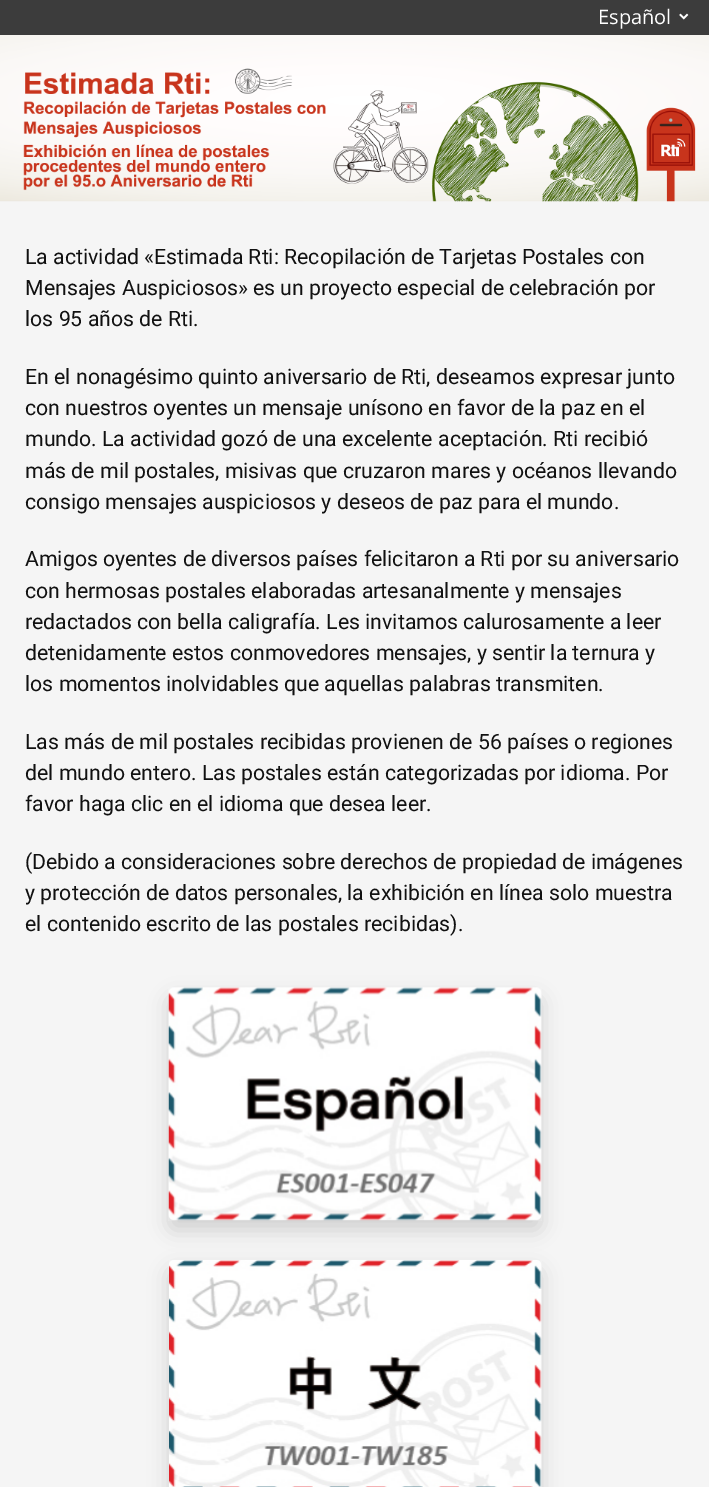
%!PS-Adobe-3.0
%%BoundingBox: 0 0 709 1487
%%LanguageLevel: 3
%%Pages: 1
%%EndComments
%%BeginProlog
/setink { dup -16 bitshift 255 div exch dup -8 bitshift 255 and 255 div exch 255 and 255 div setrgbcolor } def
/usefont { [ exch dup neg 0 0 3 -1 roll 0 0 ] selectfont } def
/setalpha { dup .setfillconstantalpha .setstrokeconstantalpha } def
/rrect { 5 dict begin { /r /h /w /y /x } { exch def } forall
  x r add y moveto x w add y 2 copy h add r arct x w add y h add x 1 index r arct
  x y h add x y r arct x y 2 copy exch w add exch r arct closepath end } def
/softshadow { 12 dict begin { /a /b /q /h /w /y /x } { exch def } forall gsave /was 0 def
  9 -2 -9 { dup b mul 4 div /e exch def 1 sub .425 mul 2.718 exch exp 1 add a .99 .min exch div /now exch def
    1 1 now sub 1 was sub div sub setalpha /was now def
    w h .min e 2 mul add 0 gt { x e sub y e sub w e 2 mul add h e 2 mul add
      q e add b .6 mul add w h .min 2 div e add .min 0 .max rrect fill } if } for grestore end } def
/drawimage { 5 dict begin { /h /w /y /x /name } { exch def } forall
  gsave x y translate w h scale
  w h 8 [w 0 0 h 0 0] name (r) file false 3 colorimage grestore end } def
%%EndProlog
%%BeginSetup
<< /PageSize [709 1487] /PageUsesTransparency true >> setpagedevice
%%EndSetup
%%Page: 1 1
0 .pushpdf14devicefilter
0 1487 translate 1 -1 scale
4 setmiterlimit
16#F5F5F5 setink
0 0 709 1487 rectfill
16#3C3C3C setink
0 0 709 35 rectfill
/OpenSans-Regular 20 usefont
16#FFFFFF setink
598 24 moveto (Español) show
(img1.raw) 679 13 10 7 drawimage
(img2.raw) 0 35 709 167 drawimage
(img3.raw) 23 68 673 134 drawimage
/Roboto-Regular 21.25 usefont
16#111111 setink
[
    [(La actividad «Estimada Rti: Recopilación de Tarjetas Postales con) 25 264]
    [(Mensajes Auspiciosos» es un proyecto especial de celebración por) 25 295]
    [(los 95 años de Rti.) 25 326]
    [(En el nonagésimo quinto aniversario de Rti, deseamos expresar junto) 25 384]
    [(con nuestros oyentes un mensaje unísono en favor de la paz en el) 25 415]
    [(mundo. La actividad gozó de una excelente aceptación. Rti recibió) 25 446]
    [(más de mil postales, misivas que cruzaron mares y océanos llevando) 25 478]
    [(consigo mensajes auspiciosos y deseos de paz para el mundo.) 25 509]
    [(Amigos oyentes de diversos países felicitaron a Rti por su aniversario) 25 566]
    [(con hermosas postales elaboradas artesanalmente y mensajes) 25 598]
    [(redactados con bella caligrafía. Les invitamos calurosamente a leer) 25 629]
    [(detenidamente estos conmovedores mensajes, y sentir la ternura y) 25 660]
    [(los momentos inolvidables que aquellas palabras transmiten.) 25 691]
    [(Las más de mil postales recibidas provienen de 56 países o regiones) 25 749]
    [(del mundo entero. Las postales están categorizadas por idioma. Por) 25 780]
    [(favor haga clic en el idioma que desea leer.) 25 811]
    [(\(Debido a consideraciones sobre derechos de propiedad de imágenes) 25 869]
    [(y protección de datos personales, la exhibición en línea solo muestra) 25 900]
    [(el contenido escrito de las postales recibidas\).) 25 931]
] { aload pop moveto show } forall
16#000000 setink
169 998 372 232 5 10 0.15 softshadow
(img4.raw) 168 987 374 234 drawimage
169 1270 372 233 5 10 0.15 softshadow
(img5.raw) 169 1260 373 227 drawimage
.poppdf14devicefilter showpage
%%EOF
